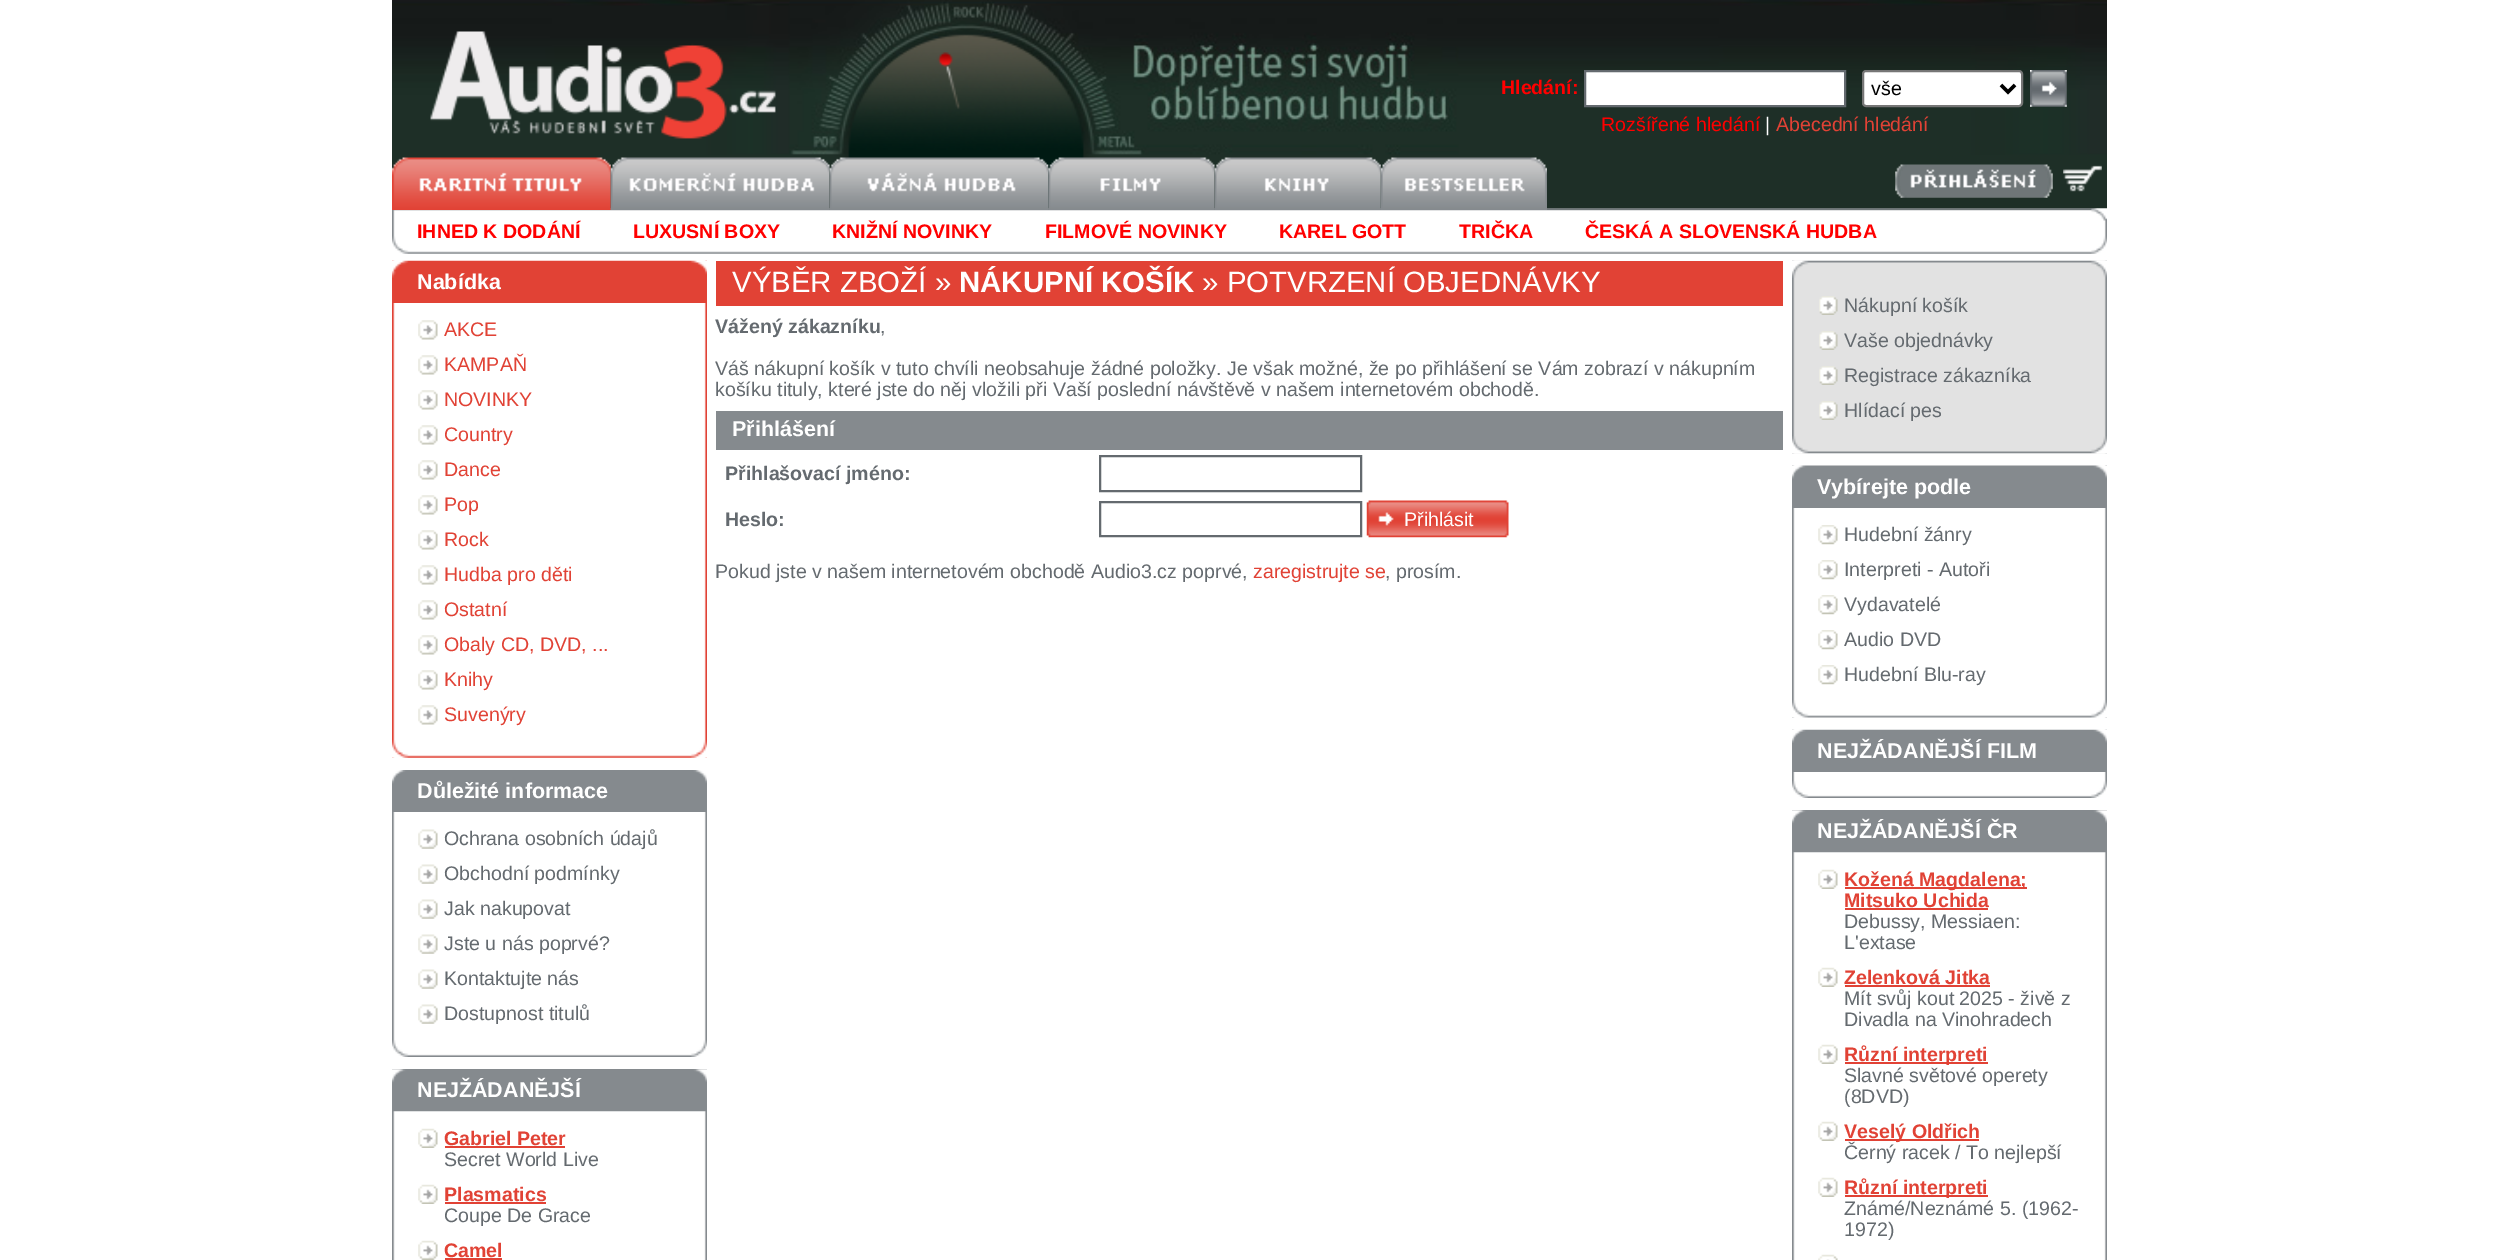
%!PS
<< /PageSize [2497 1260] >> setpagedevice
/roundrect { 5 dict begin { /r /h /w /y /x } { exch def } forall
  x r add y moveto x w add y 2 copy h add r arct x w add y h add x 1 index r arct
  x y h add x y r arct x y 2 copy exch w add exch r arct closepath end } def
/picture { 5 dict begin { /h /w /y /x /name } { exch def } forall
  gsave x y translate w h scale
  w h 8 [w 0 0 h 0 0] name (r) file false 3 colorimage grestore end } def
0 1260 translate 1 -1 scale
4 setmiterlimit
1 setgray
0 0 2497 1260 rectfill
(img1.rgb) 392 0 1715 210 picture
(img2.rgb) 430 31 346 108 picture
/LiberationSans-Bold [19.6 0 0 -19.6 0 0] selectfont
1 0 0 setrgbcolor
1501 94 moveto (Hledání:) show
1 setgray
newpath 1585 71 moveto 1845 71 lineto 1845 106 lineto 1585 106 lineto closepath gsave fill grestore
0.392 0.416 0.435 setrgbcolor
2 setlinewidth
stroke
1 setgray
1863 71 159 35 3 roundrect gsave fill grestore
0.463 setgray
stroke
0 setgray
3.5 setlinewidth
newpath 2001 85 moveto 2008 92 lineto 2015 85 lineto stroke
/LiberationSans-Regular [19.6 0 0 -19.6 0 0] selectfont
1871 95 moveto (vše) show
(img3.rgb) 2030 70 37 37 picture
1 0 0 setrgbcolor
1601 131 moveto (Rozšířené hledání) show
1 setgray
1765 131 moveto (|) show
0.882 0.259 0.208 setrgbcolor
1776 131 moveto (Abecední hledání) show
(img12.rgb) 392 208 1715 46 picture
(img4.rgb) 392 157 219 53 picture
(img5.rgb) 610 157 220 53 picture
(img6.rgb) 829 157 220 53 picture
(img7.rgb) 1048 157 167 53 picture
(img8.rgb) 1214 157 167 53 picture
(img9.rgb) 1380 157 167 53 picture
(img10.rgb) 1895 164 158 34 picture
(img11.rgb) 2063 165 39 27 picture
/LiberationSans-Bold [19.6 0 0 -19.6 0 0] selectfont
1 0 0 setrgbcolor
417 238 moveto (IHNED K DODÁNÍ) show
633 238 moveto (LUXUSNÍ BOXY) show
832 238 moveto (KNIŽNÍ NOVINKY) show
1045 238 moveto (FILMOVÉ NOVINKY) show
1279 238 moveto (KAREL GOTT) show
1459 238 moveto (TRIČKA) show
1585 238 moveto (ČESKÁ A SLOVENSKÁ HUDBA) show
(img13.rgb) 392 260 315 498 picture
0.882 0.259 0.208 setrgbcolor
393 278 313 25 rectfill
(img14.rgb) 392 260 315 18 picture
/LiberationSans-Bold [21.5 0 0 -21.5 0 0] selectfont
1 setgray
417 289 moveto (Nabídka) show
(img15.rgb) 418 320 20 20 picture
/LiberationSans-Regular [19.6 0 0 -19.6 0 0] selectfont
0.882 0.259 0.208 setrgbcolor
444 336 moveto (AKCE) show
(img15.rgb) 418 355 20 20 picture
444 371 moveto (KAMPAŇ) show
(img15.rgb) 418 390 20 20 picture
444 406 moveto (NOVINKY) show
(img15.rgb) 418 425 20 20 picture
444 441 moveto (Country) show
(img15.rgb) 418 460 20 20 picture
444 476 moveto (Dance) show
(img15.rgb) 418 495 20 20 picture
444 511 moveto (Pop) show
(img15.rgb) 418 530 20 20 picture
444 546 moveto (Rock) show
(img15.rgb) 418 565 20 20 picture
444 581 moveto (Hudba pro děti) show
(img15.rgb) 418 600 20 20 picture
444 616 moveto (Ostatní) show
(img15.rgb) 418 635 20 20 picture
444 651 moveto (Obaly CD, DVD, ...) show
(img15.rgb) 418 670 20 20 picture
444 686 moveto (Knihy) show
(img15.rgb) 418 705 20 20 picture
444 721 moveto (Suvenýry) show
(img16.rgb) 392 740 315 18 picture
(img17.rgb) 392 812 315 228 picture
0.522 0.541 0.557 setrgbcolor
392 784 315 28 rectfill
(img18.rgb) 392 770 315 14 picture
/LiberationSans-Bold [21.5 0 0 -21.5 0 0] selectfont
1 setgray
417 798 moveto (Důležité informace) show
(img19.rgb) 418 829 20 20 picture
/LiberationSans-Regular [19.6 0 0 -19.6 0 0] selectfont
0.392 0.416 0.435 setrgbcolor
444 845 moveto (Ochrana osobních údajů) show
(img19.rgb) 418 864 20 20 picture
444 880 moveto (Obchodní podmínky) show
(img19.rgb) 418 899 20 20 picture
444 915 moveto (Jak nakupovat) show
(img19.rgb) 418 934 20 20 picture
444 950 moveto (Jste u nás poprvé?) show
(img19.rgb) 418 969 20 20 picture
444 985 moveto (Kontaktujte nás) show
(img19.rgb) 418 1004 20 20 picture
444 1020 moveto (Dostupnost titulů) show
(img20.rgb) 392 1040 315 17 picture
(img21.rgb) 392 1069 315 191 picture
(img22.rgb) 392 1069 315 43 picture
/LiberationSans-Bold [21.5 0 0 -21.5 0 0] selectfont
1 setgray
417 1097 moveto (NEJŽÁDANĚJŠÍ) show
(img23.rgb) 418 1128 20 20 picture
/LiberationSans-Bold [19.6 0 0 -19.6 0 0] selectfont
0.882 0.259 0.208 setrgbcolor
444 1145 moveto (Gabriel Peter) show
445 1146 120 2 rectfill
/LiberationSans-Regular [19.6 0 0 -19.6 0 0] selectfont
0.392 0.416 0.435 setrgbcolor
444 1166 moveto (Secret World Live) show
(img23.rgb) 418 1184 20 20 picture
/LiberationSans-Bold [19.6 0 0 -19.6 0 0] selectfont
0.882 0.259 0.208 setrgbcolor
444 1201 moveto (Plasmatics) show
445 1202 101 2 rectfill
/LiberationSans-Regular [19.6 0 0 -19.6 0 0] selectfont
0.392 0.416 0.435 setrgbcolor
444 1222 moveto (Coupe De Grace) show
(img23.rgb) 418 1240 20 20 picture
/LiberationSans-Bold [19.6 0 0 -19.6 0 0] selectfont
0.882 0.259 0.208 setrgbcolor
444 1257 moveto (Camel) show
445 1258 57 2 rectfill
716 261 1067 45 rectfill
/LiberationSans-Regular [29.4 0 0 -29.4 0 0] selectfont
1 setgray
732 292 moveto (VÝBĚR ZBOŽÍ ») show
/LiberationSans-Bold [29.4 0 0 -29.4 0 0] selectfont
959 292 moveto (NÁKUPNÍ KOŠÍK) show
/LiberationSans-Regular [29.4 0 0 -29.4 0 0] selectfont
1202 292 moveto (» POTVRZENÍ OBJEDNÁVKY) show
/LiberationSans-Bold [19.6 0 0 -19.6 0 0] selectfont
0.392 0.416 0.435 setrgbcolor
715 333 moveto (Vážený zákazníku) show
/LiberationSans-Regular [19.6 0 0 -19.6 0 0] selectfont
880 333 moveto (,) show
715 375 moveto (Váš nákupní košík v tuto chvíli neobsahuje žádné položky. Je však možné, že po přihlášení se Vám zobrazí v nákupním) show
715 396 moveto (košíku tituly, které jste do něj vložili při Vaší poslední návštěvě v našem internetovém obchodě.) show
0.522 0.541 0.557 setrgbcolor
716 411 1067 39 rectfill
/LiberationSans-Bold [21.5 0 0 -21.5 0 0] selectfont
1 setgray
732 436 moveto (Přihlášení) show
/LiberationSans-Bold [19.6 0 0 -19.6 0 0] selectfont
0.392 0.416 0.435 setrgbcolor
725 480 moveto (Přihlašovací jméno:) show
2 setlinewidth
1100 456 261 35 rectstroke
725 526 moveto (Heslo:) show
1100 502 261 34 rectstroke
(img24.rgb) 1366 500 143 38 picture
/LiberationSans-Regular [19.6 0 0 -19.6 0 0] selectfont
1 setgray
1404 526 moveto (Přihlásit) show
0.392 0.416 0.435 setrgbcolor
715 578 moveto (Pokud jste v našem internetovém obchodě Audio3.cz poprvé,) show
0.882 0.259 0.208 setrgbcolor
1253 578 moveto (zaregistrujte se) show
0.392 0.416 0.435 setrgbcolor
1385 578 moveto (, prosím.) show
(img25.rgb) 1792 260 315 194 picture
(img26.rgb) 1792 260 315 18 picture
(img27.rgb) 1819 296 19 19 picture
1844 312 moveto (Nákupní košík) show
(img27.rgb) 1819 331 19 19 picture
1844 347 moveto (Vaše objednávky) show
(img27.rgb) 1819 366 19 19 picture
1844 382 moveto (Registrace zákazníka) show
(img27.rgb) 1819 401 19 19 picture
1844 417 moveto (Hlídací pes) show
(img28.rgb) 1792 436 315 18 picture
(img29.rgb) 1792 465 315 253 picture
0.522 0.541 0.557 setrgbcolor
1793 479 313 29 rectfill
(img30.rgb) 1792 465 315 14 picture
/LiberationSans-Bold [21.5 0 0 -21.5 0 0] selectfont
1 setgray
1817 494 moveto (Vybírejte podle) show
(img31.rgb) 1818 525 20 20 picture
/LiberationSans-Regular [19.6 0 0 -19.6 0 0] selectfont
0.392 0.416 0.435 setrgbcolor
1844 541 moveto (Hudební žánry) show
(img31.rgb) 1818 560 20 20 picture
1844 576 moveto (Interpreti - Autoři) show
(img31.rgb) 1818 595 20 20 picture
1844 611 moveto (Vydavatelé) show
(img31.rgb) 1818 630 20 20 picture
1844 646 moveto (Audio DVD) show
(img31.rgb) 1818 665 20 20 picture
1844 681 moveto (Hudební Blu-ray) show
(img32.rgb) 1792 700 315 18 picture
(img33.rgb) 1792 729 315 52 picture
0.522 0.541 0.557 setrgbcolor
1793 743 313 29 rectfill
(img34.rgb) 1792 729 315 14 picture
/LiberationSans-Bold [21.5 0 0 -21.5 0 0] selectfont
1 setgray
1817 758 moveto (NEJŽÁDANĚJŠÍ FILM) show
(img35.rgb) 1792 781 315 17 picture
(img36.rgb) 1792 810 315 450 picture
(img37.rgb) 1792 810 315 43 picture
1817 838 moveto (NEJŽÁDANĚJŠÍ ČR) show
(img38.rgb) 1818 869 20 20 picture
0.882 0.259 0.208 setrgbcolor
1845 887 182 2 rectfill
/LiberationSans-Bold [19.6 0 0 -19.6 0 0] selectfont
1844 886 moveto (Kožená Magdalena;) show
1844 907 moveto (Mitsuko Uchida) show
1845 908 143 2 rectfill
/LiberationSans-Regular [19.6 0 0 -19.6 0 0] selectfont
0.392 0.416 0.435 setrgbcolor
1844 928 moveto (Debussy, Messiaen:) show
1844 949 moveto (L'extase) show
(img38.rgb) 1818 967 20 20 picture
/LiberationSans-Bold [19.6 0 0 -19.6 0 0] selectfont
0.882 0.259 0.208 setrgbcolor
1844 984 moveto (Zelenková Jitka) show
1845 985 145 2 rectfill
/LiberationSans-Regular [19.6 0 0 -19.6 0 0] selectfont
0.392 0.416 0.435 setrgbcolor
1844 1005 moveto (Mít svůj kout 2025 - živě z) show
1844 1026 moveto (Divadla na Vinohradech) show
(img38.rgb) 1818 1044 20 20 picture
0.882 0.259 0.208 setrgbcolor
1845 1062 143 2 rectfill
/LiberationSans-Bold [19.6 0 0 -19.6 0 0] selectfont
1844 1061 moveto (Různí interpreti) show
/LiberationSans-Regular [19.6 0 0 -19.6 0 0] selectfont
0.392 0.416 0.435 setrgbcolor
1844 1082 moveto (Slavné světové operety) show
1844 1103 moveto (\(8DVD\)) show
(img38.rgb) 1818 1121 20 20 picture
0.882 0.259 0.208 setrgbcolor
1845 1139 134 2 rectfill
/LiberationSans-Bold [19.6 0 0 -19.6 0 0] selectfont
1844 1138 moveto (Veselý Oldřich) show
/LiberationSans-Regular [19.6 0 0 -19.6 0 0] selectfont
0.392 0.416 0.435 setrgbcolor
1844 1159 moveto (Černý racek / To nejlepší) show
(img38.rgb) 1818 1177 20 20 picture
0.882 0.259 0.208 setrgbcolor
1845 1195 143 2 rectfill
/LiberationSans-Bold [19.6 0 0 -19.6 0 0] selectfont
1844 1194 moveto (Různí interpreti) show
/LiberationSans-Regular [19.6 0 0 -19.6 0 0] selectfont
0.392 0.416 0.435 setrgbcolor
1844 1215 moveto (Známé/Neznámé 5. \(1962-) show
1844 1236 moveto (1972\)) show
(img39.rgb) 1818 1254 20 6 picture
showpage
